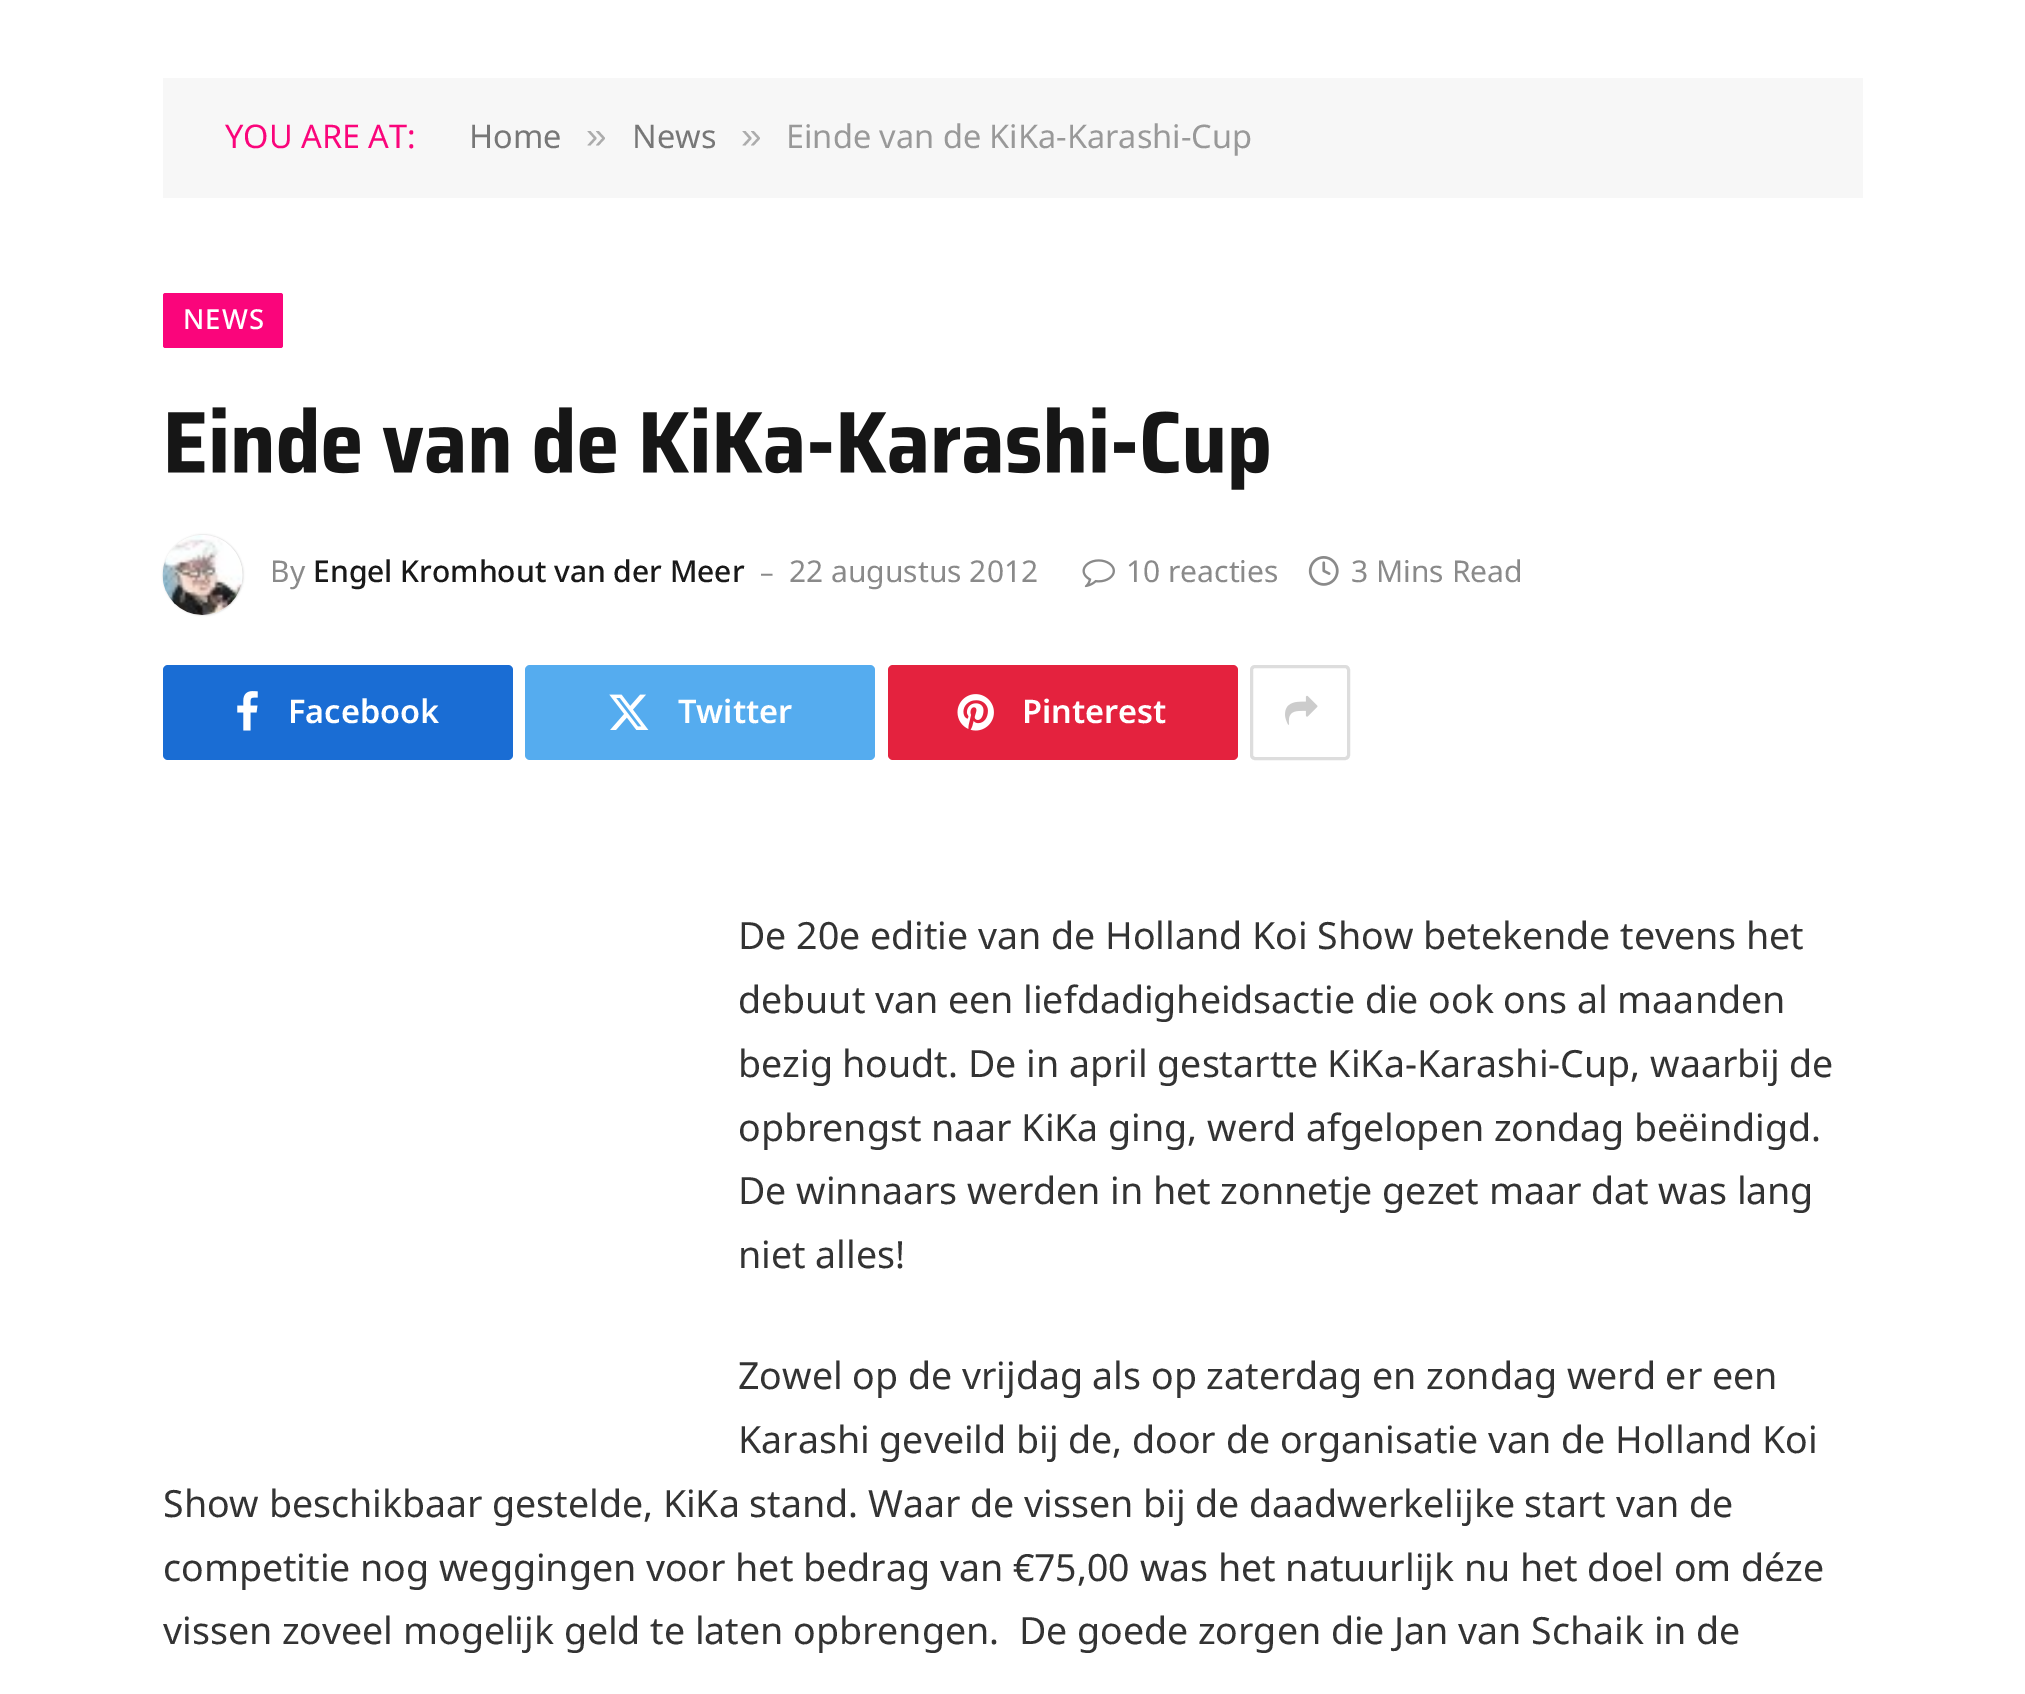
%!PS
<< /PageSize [2025 1694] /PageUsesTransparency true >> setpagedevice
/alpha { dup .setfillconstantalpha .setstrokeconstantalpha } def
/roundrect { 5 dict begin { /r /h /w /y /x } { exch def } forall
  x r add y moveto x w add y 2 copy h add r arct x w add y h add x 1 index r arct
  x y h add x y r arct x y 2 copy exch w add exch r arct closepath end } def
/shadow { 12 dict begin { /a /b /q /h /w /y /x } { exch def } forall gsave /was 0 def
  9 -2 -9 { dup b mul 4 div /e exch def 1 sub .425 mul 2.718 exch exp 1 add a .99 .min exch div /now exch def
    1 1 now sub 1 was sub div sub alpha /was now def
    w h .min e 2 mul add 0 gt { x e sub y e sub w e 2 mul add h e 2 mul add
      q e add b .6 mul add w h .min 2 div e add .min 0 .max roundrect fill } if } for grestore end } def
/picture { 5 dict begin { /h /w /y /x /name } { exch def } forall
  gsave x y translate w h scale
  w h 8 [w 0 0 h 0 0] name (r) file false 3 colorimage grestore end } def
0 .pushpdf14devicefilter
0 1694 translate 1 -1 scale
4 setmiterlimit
1 setgray
0 0 2025 1694 rectfill
0.969 setgray
163 78 1700 120 rectfill
/NotoSans-Regular [32.5 0 0 -32.5 0 0] selectfont
0.98 0.02 0.482 setrgbcolor
225 148 moveto (YOU ARE AT:) show
0.467 setgray
469 148 moveto (Home) show
/LiberationSans-Regular [37 0 0 -37 0 0] selectfont
0.675 setgray
586 148 moveto (») show
/NotoSans-Regular [32.5 0 0 -32.5 0 0] selectfont
0.467 setgray
632 148 moveto (News) show
/LiberationSans-Regular [37 0 0 -37 0 0] selectfont
0.675 setgray
741 148 moveto (») show
/NotoSans-Regular [32.5 0 0 -32.5 0 0] selectfont
0.6 setgray
786 148 moveto (Einde van de KiKa-Karashi-Cup) show
0.98 0.02 0.482 setrgbcolor
163 293 120 55 2.5 roundrect fill
/NotoSans-Medium [27.5 0 0 -27.5 0 0] selectfont
1 setgray
183 329 moveto 1 0 (NEWS) ashow
(img1.rgb) 168 407 1101 83 picture
0 setgray
163 535 80 80 40 1 0.2 shadow
(img2.rgb) 162 535 81 80 picture
/NotoSans-Regular [30 0 0 -30 0 0] selectfont
0.541 setgray
270 582 moveto (By) show
/NotoSans-Medium [30 0 0 -30 0 0] selectfont
0.098 setgray
313 582 moveto (Engel Kromhout van der Meer) show
/NotoSans-Regular [27 0 0 -27 0 0] selectfont
0.541 setgray
760 582 moveto (–) show
/NotoSans-Regular [30 0 0 -30 0 0] selectfont
789 582 moveto (22 augustus 2012) show
(img3.rgb) 1082 559 33 29 picture
1126 582 moveto (10 reacties) show
(img4.rgb) 1308 556 31 30 picture
1351 582 moveto (3 Mins Read) show
0.102 0.427 0.831 setrgbcolor
163 665 350 95 5 roundrect fill
(img5.rgb) 237 691 21 40 picture
/NotoSans-SemiBold [32.5 0 0 -32.5 0 0] selectfont
1 setgray
288 723 moveto (Facebook) show
0.333 0.675 0.937 setrgbcolor
525 665 350 95 5 roundrect fill
(img6.rgb) 609 694 40 36 picture
1 setgray
678 723 moveto (Twitter) show
0.894 0.133 0.243 setrgbcolor
888 665 350 95 5 roundrect fill
(img7.rgb) 957 694 37 37 picture
1 setgray
1022 723 moveto (Pinterest) show
0.867 setgray
3 setlinewidth
1251.5 666.5 97 92 3.5 roundrect stroke
(img8.rgb) 1285 695 33 30 picture
/NotoSans-Regular [37.5 0 0 -37.5 0 0] selectfont
0.2 setgray
738 949 moveto (De 20e editie van de Holland Koi Show betekende tevens het) show
738 1013 moveto (debuut van een liefdadigheidsactie die ook ons al maanden) show
738 1077 moveto (bezig houdt. De in april gestartte KiKa-Karashi-Cup, waarbij de) show
738 1141 moveto (opbrengst naar KiKa ging, werd afgelopen zondag beëindigd.) show
738 1204 moveto (De winnaars werden in het zonnetje gezet maar dat was lang) show
738 1268 moveto (niet alles!) show
738 1389 moveto (Zowel op de vrijdag als op zaterdag en zondag werd er een) show
738 1453 moveto (Karashi geveild bij de, door de organisatie van de Holland Koi) show
163 1517 moveto (Show beschikbaar gestelde, KiKa stand. Waar de vissen bij de daadwerkelijke start van de) show
163 1581 moveto (competitie nog weggingen voor het bedrag van €75,00 was het natuurlijk nu het doel om déze) show
163 1644 moveto (vissen zoveel mogelijk geld te laten opbrengen.  De goede zorgen die Jan van Schaik in de) show
.poppdf14devicefilter showpage
